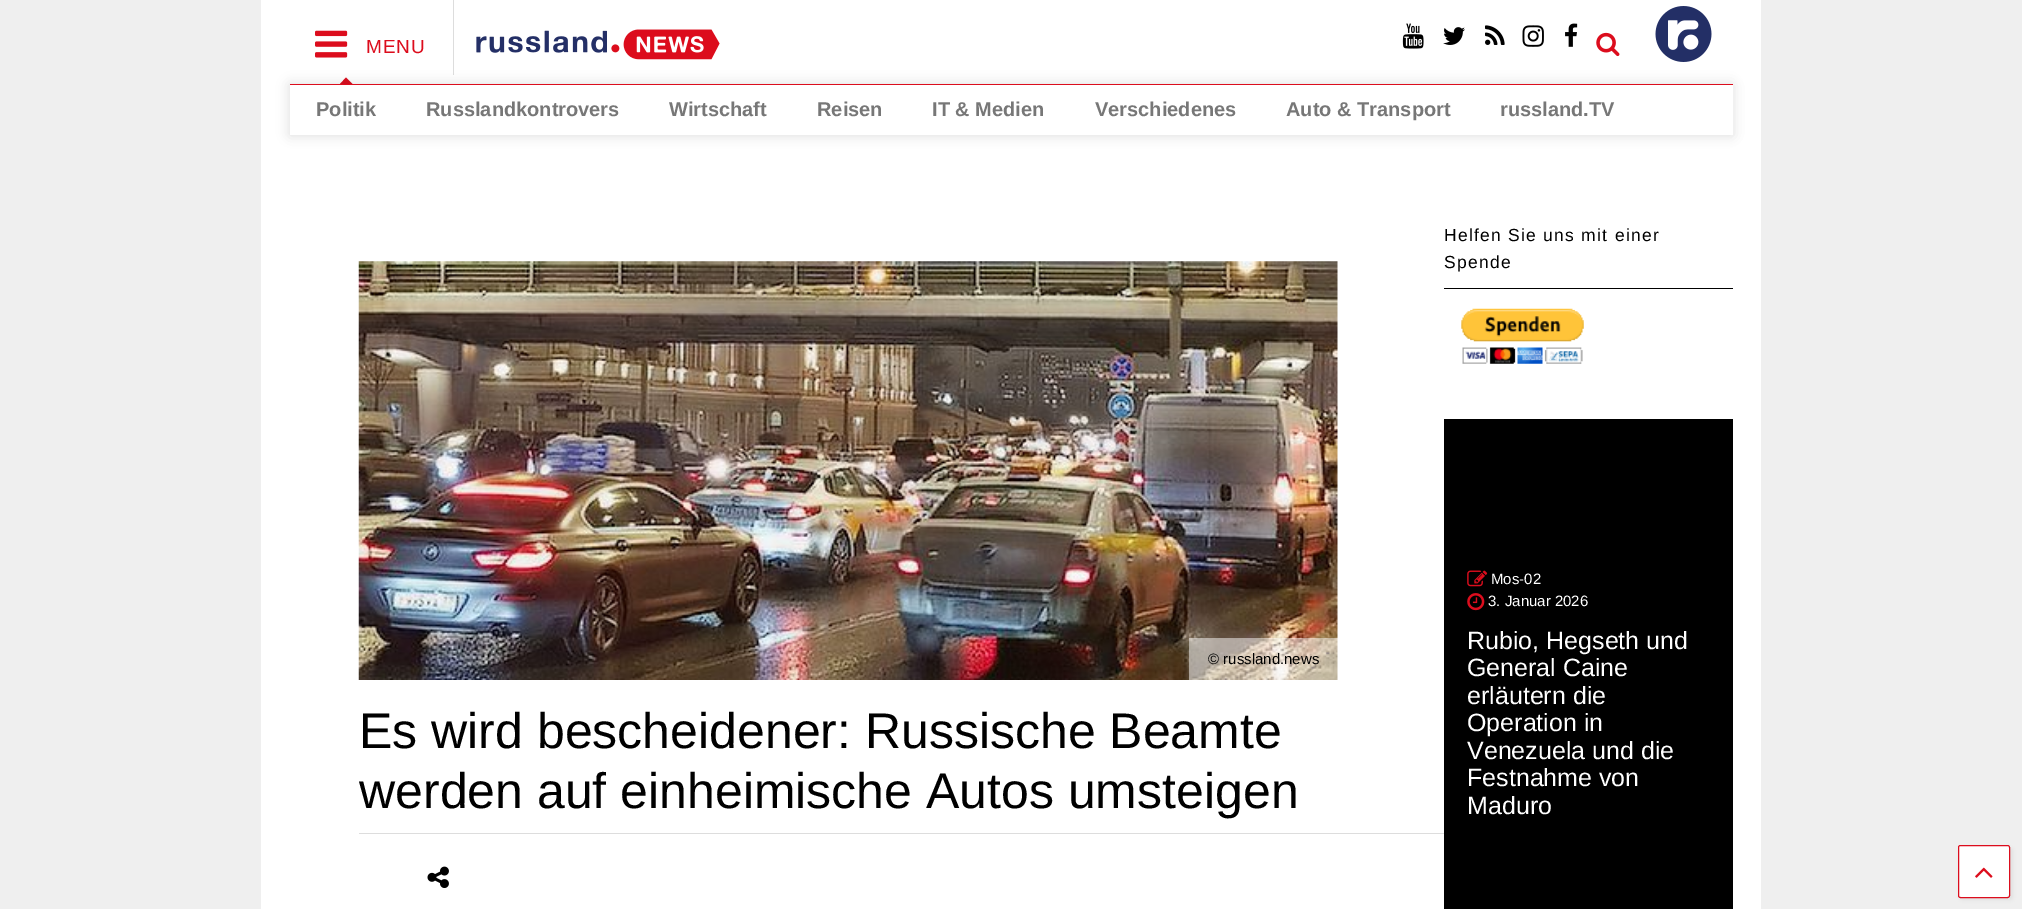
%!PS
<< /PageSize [2022 909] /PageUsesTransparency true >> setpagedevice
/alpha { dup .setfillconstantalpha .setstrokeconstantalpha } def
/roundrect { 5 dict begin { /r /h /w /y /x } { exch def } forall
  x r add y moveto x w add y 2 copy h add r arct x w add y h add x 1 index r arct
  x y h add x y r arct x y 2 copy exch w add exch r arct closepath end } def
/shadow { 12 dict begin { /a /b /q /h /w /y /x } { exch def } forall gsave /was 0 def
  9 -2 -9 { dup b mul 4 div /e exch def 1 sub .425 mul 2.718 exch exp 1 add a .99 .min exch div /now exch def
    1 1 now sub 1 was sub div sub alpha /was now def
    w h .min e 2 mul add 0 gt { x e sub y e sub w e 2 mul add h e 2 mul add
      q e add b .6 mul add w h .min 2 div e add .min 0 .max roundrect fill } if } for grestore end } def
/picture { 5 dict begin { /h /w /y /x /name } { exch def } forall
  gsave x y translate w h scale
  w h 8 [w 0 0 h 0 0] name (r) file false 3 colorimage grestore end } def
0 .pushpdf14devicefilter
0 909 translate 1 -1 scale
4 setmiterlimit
0.937 setgray
0 0 2022 909 rectfill
1 setgray
261 0 1500 909 rectfill
(img1.rgb) 315 30 33 28 picture
/Arimo-Regular [19 0 0 -19 0 0] selectfont
0.863 0.047 0.11 setrgbcolor
366 53 moveto 1 0 (MENU) ashow
0.863 0.051 0.114 setrgbcolor
newpath 352.5 84 moveto 340 84 lineto 346 77.5 lineto closepath fill
0.867 setgray
453 0 1 75 rectfill
(img2.rgb) 476 29 244 31 picture
(img3.rgb) 1402 23 22 26 picture
(img4.rgb) 1443 27 22 18 picture
(img5.rgb) 1485 25 20 20 picture
(img6.rgb) 1522 25 22 22 picture
(img7.rgb) 1565 23 13 24 picture
(img8.rgb) 1596 32 24 25 picture
(img9.rgb) 1655 6 57 56 picture
0 setgray
289 84 1442 51 0 6 0.08 shadow
291 85 1443 51 0 6 0.05 shadow
1 setgray
290 85 1443 50 rectfill
0.863 0.051 0.114 setrgbcolor
290 84 1443 1 rectfill
/Arimo-Bold [20 0 0 -20 0 0] selectfont
0.467 setgray
316 116 moveto (Politik) show
426 116 moveto (Russlandkontrovers) show
669 116 moveto (Wirtschaft) show
817 116 moveto (Reisen) show
932 116 moveto (IT & Medien) show
1095 116 moveto (Verschiedenes) show
1286 116 moveto (Auto & Transport) show
1500 116 moveto (russland.TV) show
(img10.rgb) 358 261 980 419 picture
0.5 alpha
1 setgray
1189 638 149 42 rectfill
/Arimo-Regular [15 0 0 -15 0 0] selectfont
1 alpha
0 setgray
1208 664 moveto (© russland.news) show
/Arimo-Regular [50 0 0 -50 0 0] selectfont
359 748 moveto (Es wird bescheidener: Russische Beamte) show
359 808 moveto (werden auf einheimische Autos umsteigen) show
0.867 setgray
359 833 1085 1 rectfill
(img11.rgb) 427 866 22 22 picture
0 setgray
1444 288 289 1 rectfill
/Arimo-Regular [17.5 0 0 -17.5 0 0] selectfont
1444 241 moveto 1.25 0 (Helfen Sie uns mit einer) ashow
1444 268 moveto 1.25 0 (Spende) ashow
(img12.rgb) 1461 308 123 56 picture
1444 419 289 490 rectfill
(img13.rgb) 1467 570 21 17 picture
/Arimo-Regular [15 0 0 -15 0 0] selectfont
1 setgray
1491 584 moveto (Mos-02) show
(img14.rgb) 1467 593 18 18 picture
1488 606 moveto (3. Januar 2026) show
/Arimo-Regular [25 0 0 -25 0 0] selectfont
1467 649 moveto (Rubio, Hegseth und) show
1467 676 moveto (General Caine) show
1467 704 moveto (erläutern die) show
1467 731 moveto (Operation in) show
1467 759 moveto (Venezuela und die) show
1467 786 moveto (Festnahme von) show
1467 814 moveto (Maduro) show
0 setgray
1960 848 53 52 2.5 2 0.05 shadow
1 setgray
1958.5 845.5 51 52 2 roundrect gsave fill grestore
0.863 0.051 0.114 setrgbcolor
stroke
(img15.rgb) 1975 867 18 11 picture
.poppdf14devicefilter showpage
